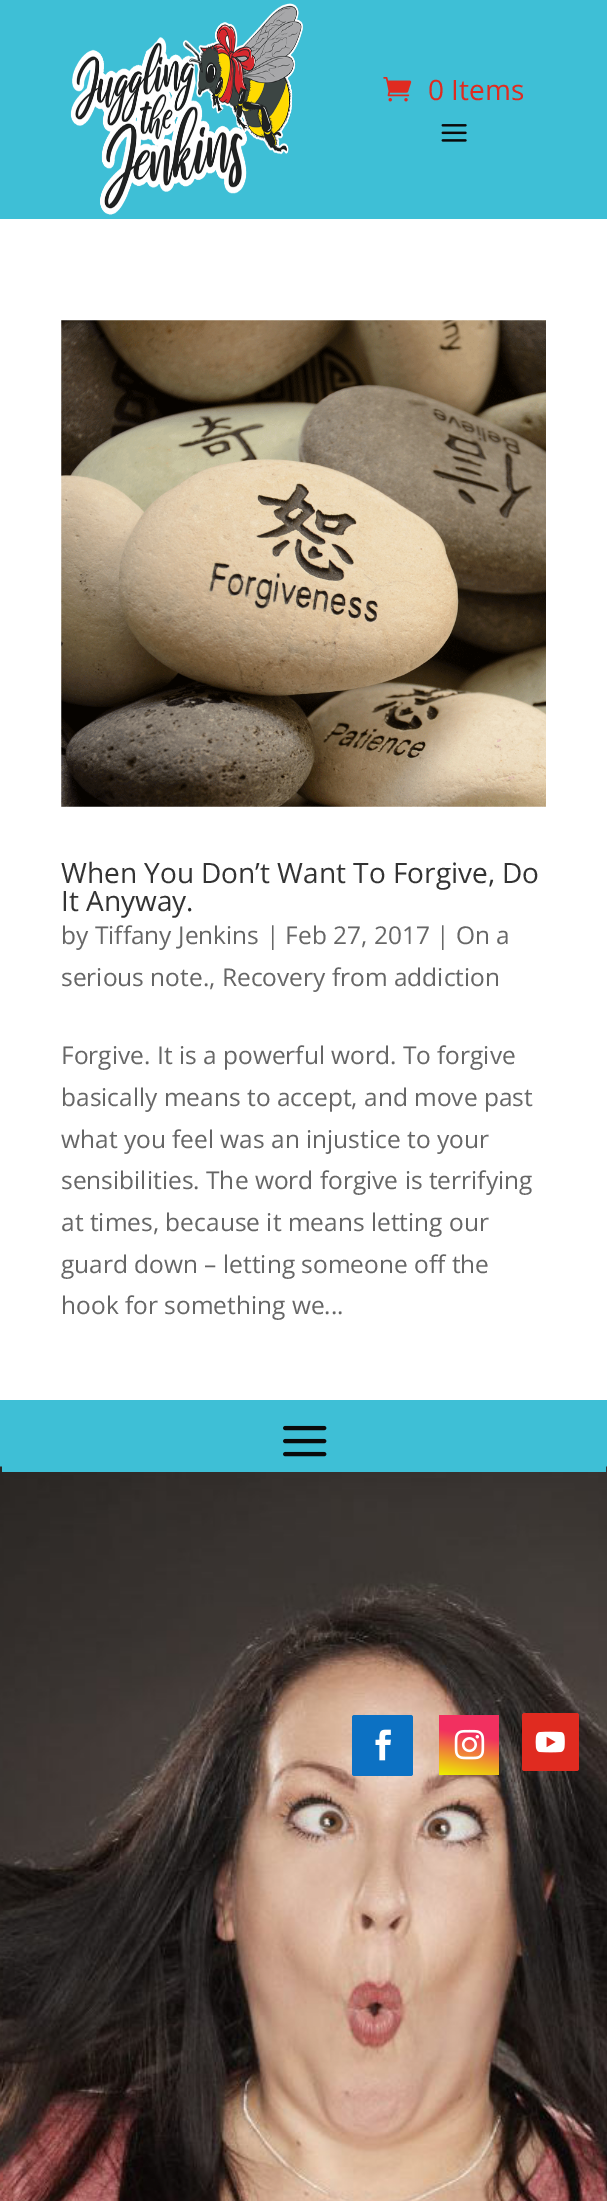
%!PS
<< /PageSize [607 2201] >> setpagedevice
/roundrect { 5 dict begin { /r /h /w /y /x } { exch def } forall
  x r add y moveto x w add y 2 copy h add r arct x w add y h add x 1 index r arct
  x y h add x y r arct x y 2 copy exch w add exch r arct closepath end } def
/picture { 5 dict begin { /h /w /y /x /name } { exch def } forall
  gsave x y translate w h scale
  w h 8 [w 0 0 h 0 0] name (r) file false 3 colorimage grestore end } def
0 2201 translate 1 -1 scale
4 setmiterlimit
1 setgray
0 0 607 2201 rectfill
0.243 0.749 0.839 setrgbcolor
0 0 607 219 rectfill
(img1.rgb) 70 3 233 212 picture
(img2.rgb) 383 77 29 25 picture
/OpenSans-Regular [28 0 0 -28 0 0] selectfont
0.878 0.169 0.125 setrgbcolor
428 100 moveto (0 Items) show
(img3.rgb) 441 124 26 18 picture
(img4.rgb) 61 320 485 487 picture
0.2 setgray
61 883 moveto (When You Don’t Want To Forgive, Do) show
61 911 moveto (It Anyway.) show
/OpenSans-Regular [24.5 0 0 -24.5 0 0] selectfont
0.4 setgray
61 944 moveto (by Tiffany Jenkins | Feb 27, 2017 | On a) show
61 986 moveto (serious note., Recovery from addiction) show
61 1064 moveto (Forgive. It is a powerful word. To forgive) show
61 1106 moveto (basically means to accept, and move past) show
61 1148 moveto (what you feel was an injustice to your) show
61 1189 moveto (sensibilities. The word forgive is terrifying) show
61 1231 moveto (at times, because it means letting our) show
61 1273 moveto (guard down – letting someone off the) show
61 1314 moveto (hook for something we...) show
0.243 0.749 0.839 setrgbcolor
0 1400 607 67 rectfill
(img6.rgb) 0 1466 607 735 picture
2 1466 604 6 rectfill
(img5.rgb) 283 1425 44 32 picture
0.047 0.443 0.765 setrgbcolor
352 1715 61 61 2.5 roundrect fill
(img7.rgb) 375 1729 16 32 picture
gsave 439 1715 60 60 2 roundrect clip newpath
<< /ShadingType 2 /ColorSpace /DeviceRGB /Coords [475 1712 463 1779] /Extend [true true] /Function << /FunctionType 3 /Domain [0 1] /Functions [<< /FunctionType 2 /Domain [0 1] /C0 [0.949 0.188 0.376] /C1 [0.949 0.188 0.376] /N 1 >> << /FunctionType 2 /Domain [0 1] /C0 [0.949 0.188 0.376] /C1 [0.929 0.941 0] /N 1 >>] /Bounds [0.34] /Encode [0 1 0 1] >> >> shfill grestore
(img8.rgb) 454 1729 31 31 picture
0.878 0.169 0.125 setrgbcolor
522 1713 57 58 2.5 roundrect fill
(img9.rgb) 535 1731 30 22 picture
showpage
